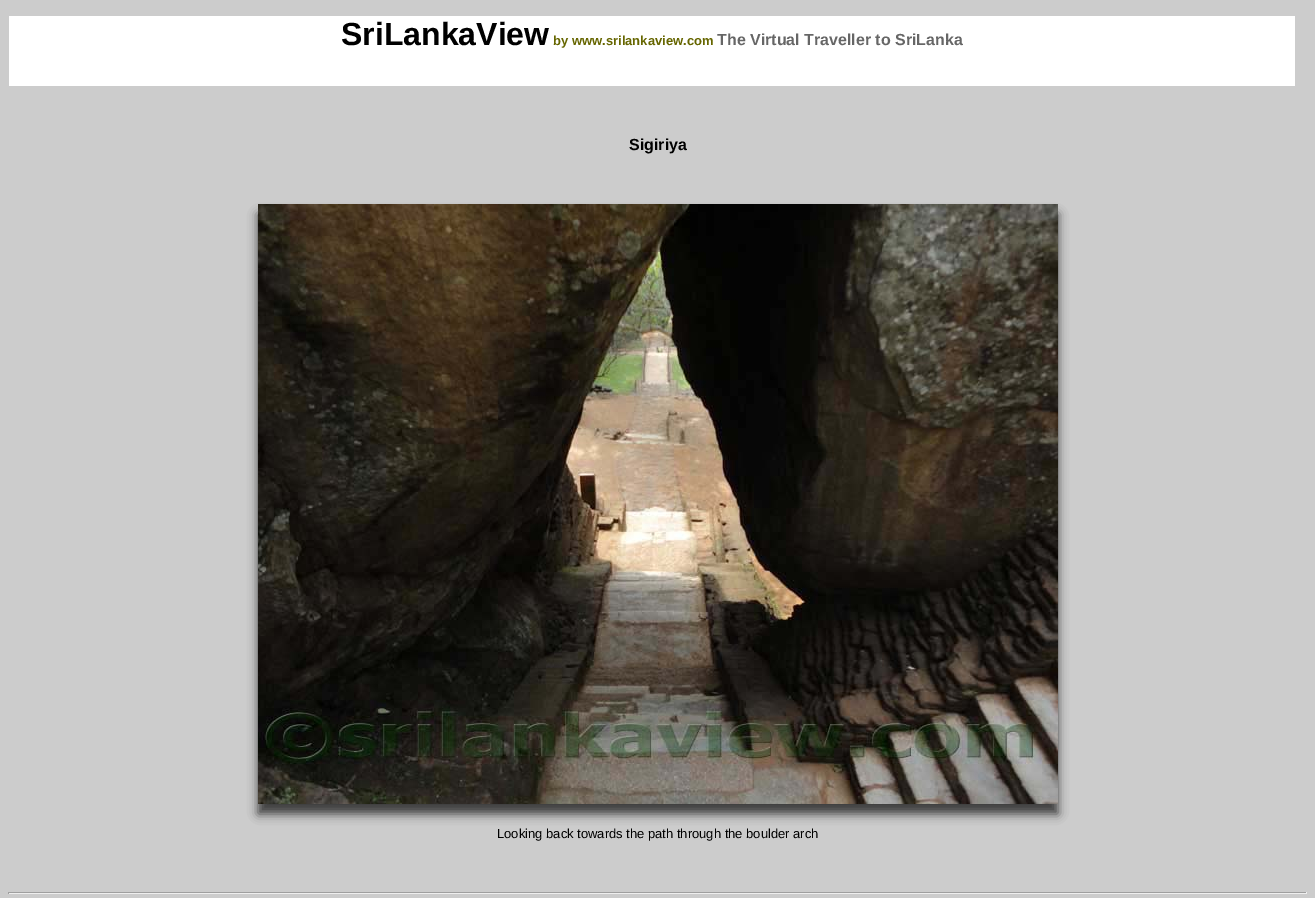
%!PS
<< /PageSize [1315 898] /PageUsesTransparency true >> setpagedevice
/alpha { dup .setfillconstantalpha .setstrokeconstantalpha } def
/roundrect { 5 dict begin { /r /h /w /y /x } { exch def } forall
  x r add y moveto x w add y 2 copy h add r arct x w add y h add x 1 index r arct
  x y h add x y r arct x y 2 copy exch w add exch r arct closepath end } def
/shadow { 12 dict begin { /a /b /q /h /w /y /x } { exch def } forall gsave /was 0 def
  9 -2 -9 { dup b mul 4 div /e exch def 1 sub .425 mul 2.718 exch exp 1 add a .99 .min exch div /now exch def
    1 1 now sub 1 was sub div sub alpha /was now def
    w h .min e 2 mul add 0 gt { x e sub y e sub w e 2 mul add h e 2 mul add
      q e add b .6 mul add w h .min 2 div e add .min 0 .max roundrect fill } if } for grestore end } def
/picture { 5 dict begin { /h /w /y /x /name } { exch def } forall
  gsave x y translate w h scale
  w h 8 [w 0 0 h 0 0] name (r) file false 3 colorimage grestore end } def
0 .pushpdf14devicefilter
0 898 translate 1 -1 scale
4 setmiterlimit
0.8 setgray
0 0 1315 898 rectfill
1 setgray
9 16 1286 70 rectfill
/LiberationSans-Bold [32 0 0 -32 0 0] selectfont
0 setgray
341 45 moveto (SriLankaView) show
/LiberationSans-Bold [13 0 0 -13 0 0] selectfont
0.4 0.4 0 setrgbcolor
553 45 moveto (by www.srilankaview.com) show
/LiberationSans-Bold [16 0 0 -16 0 0] selectfont
0.4 setgray
717 45 moveto (The Virtual Traveller to SriLanka) show
0 setgray
629 150 moveto (Sigiriya) show
258 214 800 600 0 5 0.7 shadow
(img1.rgb) 258 204 800 600 picture
/LiberationSans-Regular [13 0 0 -13 0 0] selectfont
497 838 moveto (Looking back towards the path through the boulder arch) show
0.624 setgray
8 892 1299 1 rectfill
0.933 setgray
1306 892 1 2 rectfill
8 893 1299 1 rectfill
0.624 setgray
8 892 1 2 rectfill
.poppdf14devicefilter showpage
